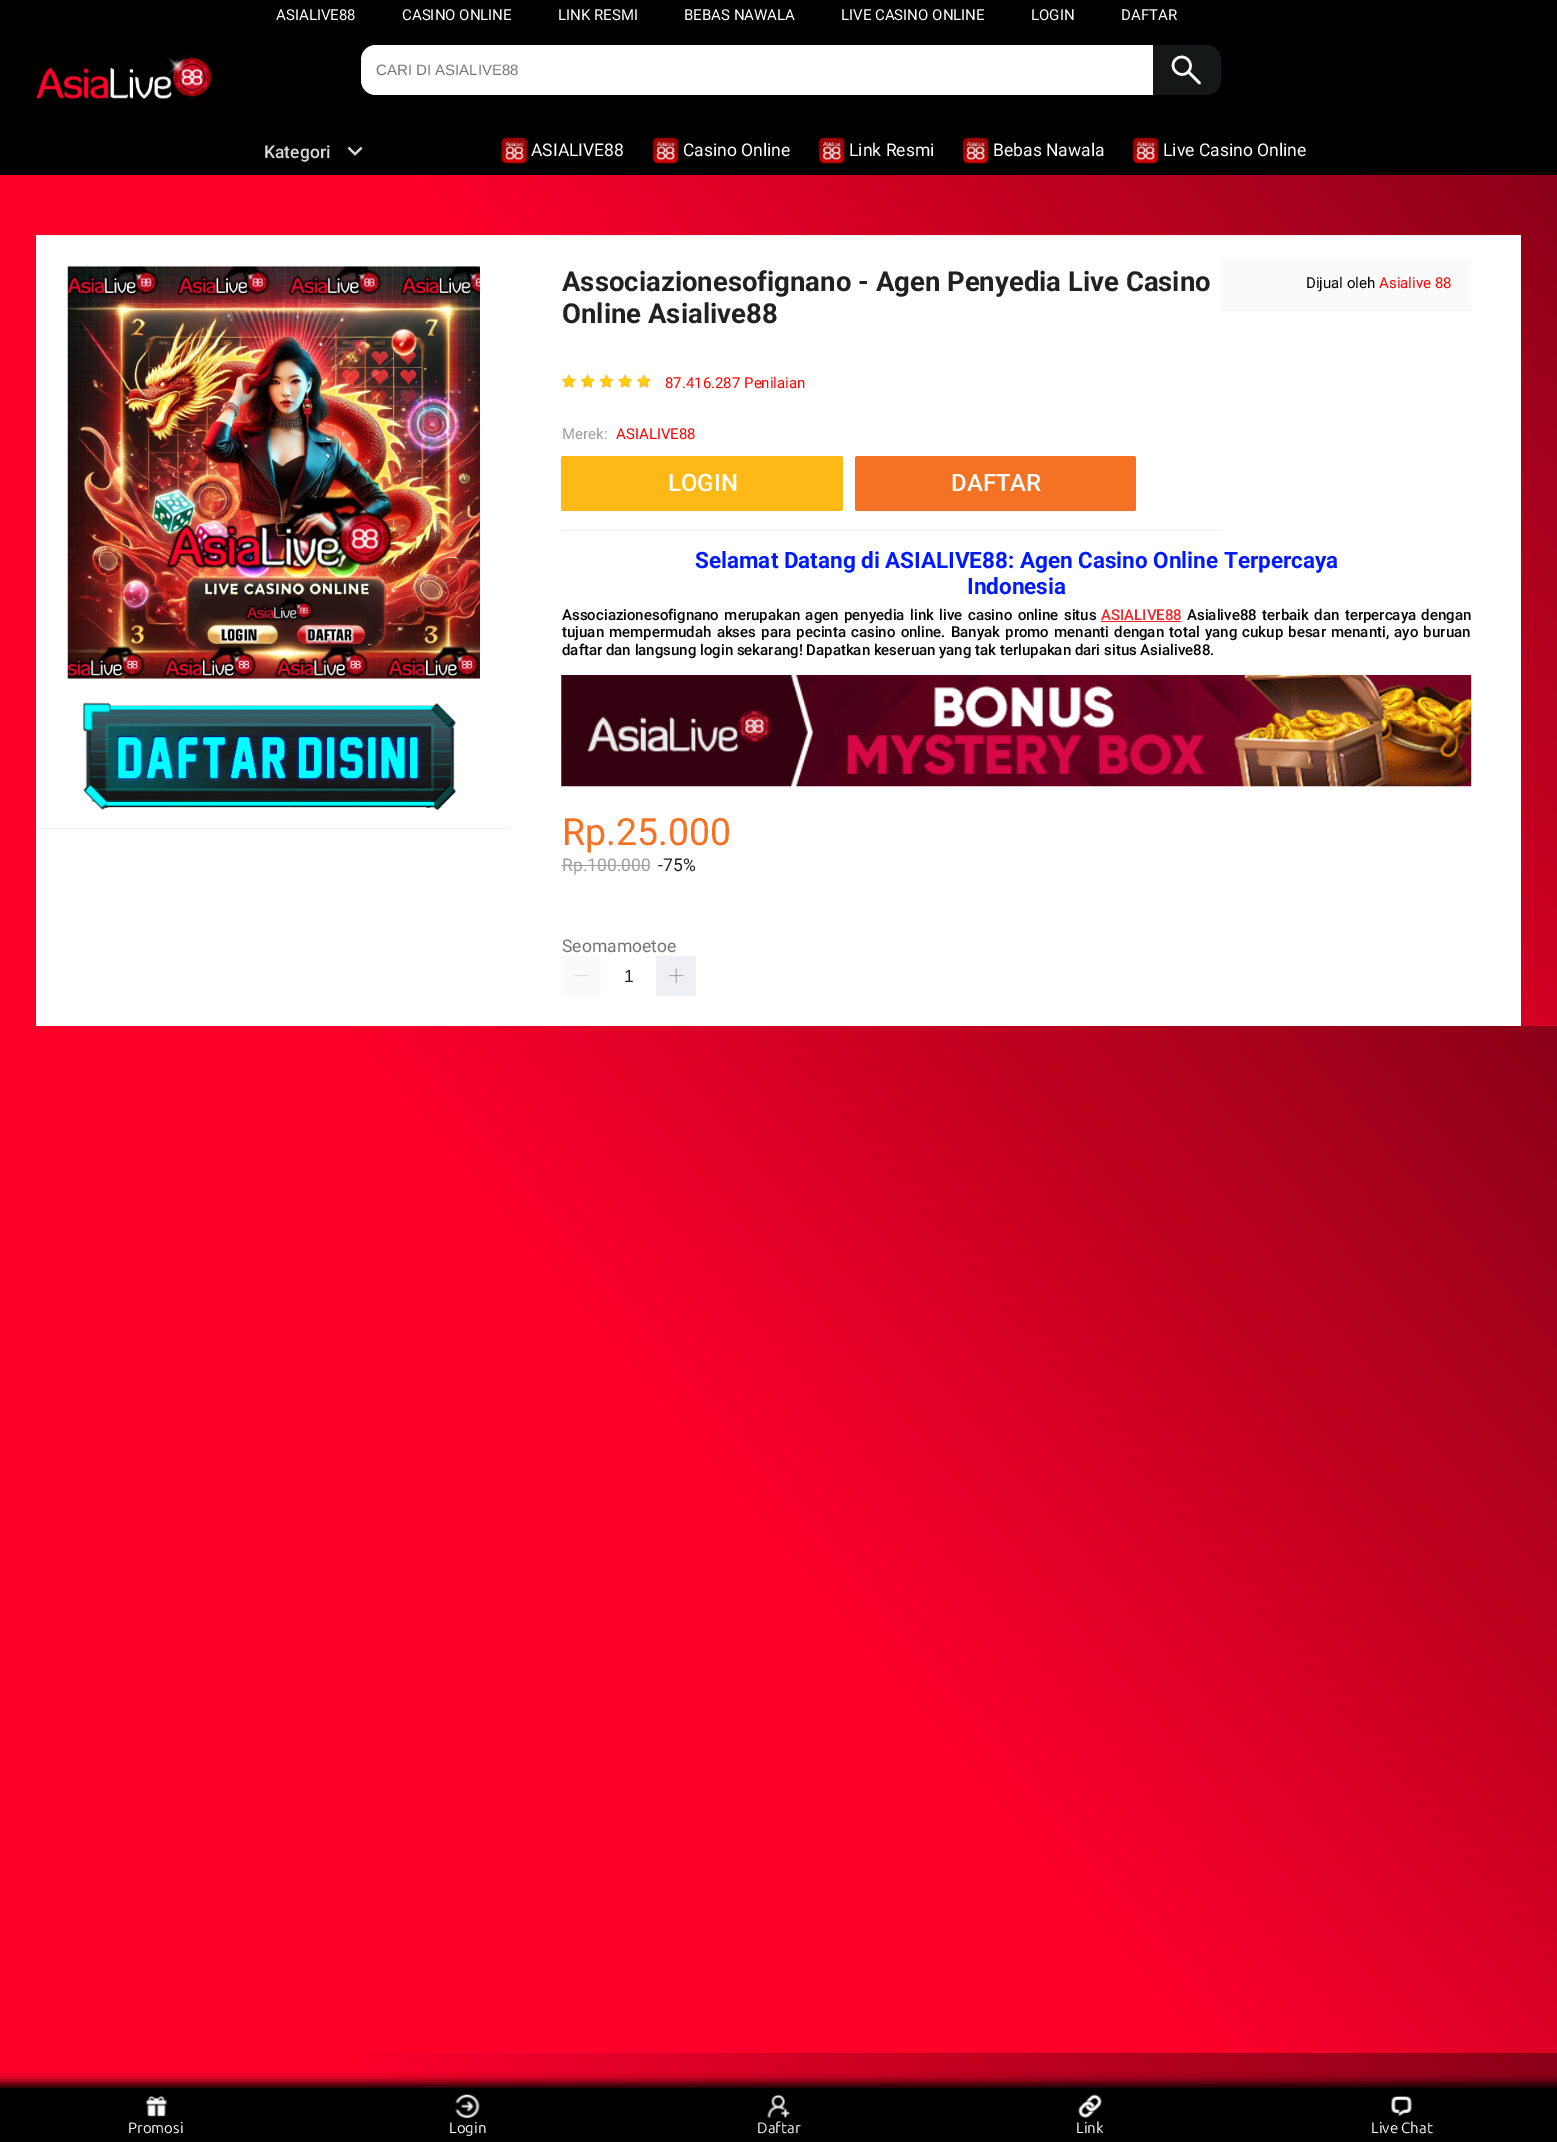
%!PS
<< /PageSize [1557 2142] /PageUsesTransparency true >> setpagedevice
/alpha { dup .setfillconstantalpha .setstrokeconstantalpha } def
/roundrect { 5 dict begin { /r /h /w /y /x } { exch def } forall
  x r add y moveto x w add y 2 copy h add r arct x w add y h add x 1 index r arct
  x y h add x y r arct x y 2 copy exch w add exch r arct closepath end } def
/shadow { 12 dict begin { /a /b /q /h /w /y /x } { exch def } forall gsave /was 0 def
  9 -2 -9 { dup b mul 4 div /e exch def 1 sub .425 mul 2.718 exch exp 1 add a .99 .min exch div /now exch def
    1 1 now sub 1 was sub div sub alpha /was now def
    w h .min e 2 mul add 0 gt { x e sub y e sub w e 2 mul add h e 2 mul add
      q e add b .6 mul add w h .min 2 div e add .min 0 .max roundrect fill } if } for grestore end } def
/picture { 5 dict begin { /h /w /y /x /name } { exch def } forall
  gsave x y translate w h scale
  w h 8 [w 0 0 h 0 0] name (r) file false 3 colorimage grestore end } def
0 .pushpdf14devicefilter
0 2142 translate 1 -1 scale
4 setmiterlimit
1 setgray
0 0 1557 2142 rectfill
gsave newpath 0 1026 moveto 1557 1026 lineto 1557 2053 lineto 0 2053 lineto closepath clip newpath
<< /ShadingType 2 /ColorSpace /DeviceRGB /Coords [69 2135 1488 944] /Extend [true true] /Function << /FunctionType 3 /Domain [0 1] /Functions [<< /FunctionType 2 /Domain [0 1] /C0 [0.988 0 0.165] /C1 [0.988 0 0.165] /N 1 >> << /FunctionType 2 /Domain [0 1] /C0 [0.988 0 0.165] /C1 [0.545 0.004 0.094] /N 1 >>] /Bounds [0.5] /Encode [0 1 0 1] >> >> shfill grestore
gsave newpath 0 2053 moveto 1557 2053 lineto 1557 2088 lineto 0 2088 lineto closepath clip newpath
<< /ShadingType 2 /ColorSpace /DeviceRGB /Coords [69 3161 1488 1970] /Extend [true true] /Function << /FunctionType 3 /Domain [0 1] /Functions [<< /FunctionType 2 /Domain [0 1] /C0 [0.988 0 0.165] /C1 [0.988 0 0.165] /N 1 >> << /FunctionType 2 /Domain [0 1] /C0 [0.988 0 0.165] /C1 [0.545 0.004 0.094] /N 1 >>] /Bounds [0.5] /Encode [0 1 0 1] >> >> shfill grestore
0 setgray
0 0 1557 175 rectfill
/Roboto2-Regular [15 0 0 -15 0 0] selectfont
1 setgray
276 20 moveto (ASIALIVE88) show
402 20 moveto (CASINO ONLINE) show
558 20 moveto (LINK RESMI) show
684 20 moveto (BEBAS NAWALA) show
841 20 moveto (LIVE CASINO ONLINE) show
1031 20 moveto (LOGIN) show
1121 20 moveto (DAFTAR) show
(img1.rgb) 36 45 176 54 picture
newpath 376 45 moveto 1153 45 lineto 1153 95 lineto 376 95 lineto 367.5 95 361 88.5 361 80 curveto 361 60 lineto 361 51.5 367.5 45 376 45 curveto closepath fill
/LiberationSans-Regular [15 0 0 -15 0 0] selectfont
0.459 setgray
376 75 moveto (CARI DI ASIALIVE88) show
0.078 0.094 0.094 setrgbcolor
newpath 1153 45 moveto 1206 45 lineto 1214.5 45 1221 51.5 1221 60 curveto 1221 80 lineto 1221 88.5 1214.5 95 1206 95 curveto 1153 95 lineto closepath fill
1 setgray
2.5 setlinewidth
1 setlinecap
1 setlinejoin
newpath 1188 72 moveto 1196 63.5 1184 51.5 1175.5 59.5 curveto 1167.5 67.5 1180 80 1188 72 curveto closepath 1188.5 72 moveto 1199.5 83 lineto stroke
/Roboto2-Medium [17.5 0 0 -17.5 0 0] selectfont
0.851 setgray
264 158 moveto (Kategori) show
(img2.rgb) 347 146 16 10 picture
(img3.rgb) 501 137 27 27 picture
/Roboto2-Regular [17.5 0 0 -17.5 0 0] selectfont
1 setgray
531 156 moveto (ASIALIVE88) show
(img4.rgb) 652 137 28 27 picture
683 156 moveto (Casino Online) show
(img5.rgb) 818 137 28 27 picture
849 156 moveto (Link Resmi) show
(img4.rgb) 962 137 28 27 picture
993 156 moveto (Bebas Nawala) show
(img4.rgb) 1132 137 28 27 picture
1163 156 moveto (Live Casino Online) show
gsave newpath 0 175 moveto 1557 175 lineto 1557 1026 lineto 0 1026 lineto closepath clip newpath
<< /ShadingType 2 /ColorSpace /DeviceRGB /Coords [112 1160 1445 41] /Extend [true true] /Function << /FunctionType 3 /Domain [0 1] /Functions [<< /FunctionType 2 /Domain [0 1] /C0 [0.988 0 0.165] /C1 [0.988 0 0.165] /N 1 >> << /FunctionType 2 /Domain [0 1] /C0 [0.988 0 0.165] /C1 [0.545 0.004 0.094] /N 1 >>] /Bounds [0.5] /Encode [0 1 0 1] >> >> shfill grestore
0.937 0.941 0.961 setrgbcolor
36 235 1485 1 rectfill
1 setgray
36 236 1485 790 rectfill
0.937 0.941 0.961 setrgbcolor
36 828 475 1 rectfill
(img6.rgb) 67 266 413 413 picture
(img7.rgb) 82 702 374 109 picture
/Roboto-Bold [27.5 0 0 -27.5 0 0] selectfont
0.129 setgray
562 291 moveto (Associazionesofignano - Agen Penyedia Live Casino) show
562 323 moveto (Online Asialive88) show
(img8.rgb) 561 373 16 15 picture
(img9.rgb) 580 373 15 15 picture
(img10.rgb) 598 373 16 15 picture
(img11.rgb) 617 374 16 14 picture
(img8.rgb) 636 373 16 15 picture
/Roboto-Regular [15 0 0 -15 0 0] selectfont
1 0 0 setrgbcolor
665 388 moveto (87.416.287 Penilaian) show
0.937 0.941 0.961 setrgbcolor
561 530 660 1 rectfill
0.62 setgray
562 439 moveto (Merek:) show
1 0 0 setrgbcolor
616 439 moveto (ASIALIVE88) show
1 0.725 0.086 setrgbcolor
561 456 282 55 2.5 roundrect fill
/Roboto-Medium [24 0 0 -24 0 0] selectfont
1 setgray
668 491 moveto (LOGIN) show
0.961 0.447 0.141 setrgbcolor
855 456 281 55 2.5 roundrect fill
1 setgray
951 491 moveto (DAFTAR) show
0.98 setgray
1221 259 250 51 rectfill
/Roboto-Regular [15 0 0 -15 0 0] selectfont
0 setgray
1306 288 moveto (Dijual oleh) show
1 0 0 setrgbcolor
1379 288 moveto (Asialive 88) show
0.937 0.941 0.961 setrgbcolor
1221 310 250 1 rectfill
/Roboto-Bold [22.5 0 0 -22.5 0 0] selectfont
0 0.102 1 setrgbcolor
695 568 moveto (Selamat Datang di ASIALIVE88: Agen Casino Online Terpercaya) show
967 594 moveto (Indonesia) show
/Roboto-Medium [15 0 0 -15 0 0] selectfont
0 setgray
562 620 moveto 1.75 0 32 (Associazionesofignano merupakan agen penyedia link live casino online situs) widthshow
0.961 0.141 0.141 setrgbcolor
1101 620 moveto (ASIALIVE88) show
1101 621 80 1 rectfill
0 setgray
1187 620 moveto 1.75 0 32 (Asialive88 terbaik dan terpercaya dengan) widthshow
562 637 moveto 1.5 0 32 (tujuan mempermudah akses para pecinta casino online. Banyak promo menanti dengan total yang cukup besar menanti, ayo buruan) widthshow
562 655 moveto (daftar dan langsung login sekarang! Dapatkan keseruan yang tak terlupakan dari situs Asialive88.) show
(img12.rgb) 561 675 911 112 picture
/Roboto-Regular [37.5 0 0 -37.5 0 0] selectfont
0.961 0.447 0.141 setrgbcolor
562 845 moveto (Rp.25.000) show
/Roboto-Regular [17.5 0 0 -17.5 0 0] selectfont
0.62 setgray
562 871 moveto (Rp.100.000) show
561 865 89 1 rectfill
0.129 setgray
658 871 moveto (-75%) show
0.459 setgray
562 952 moveto (Seomamoetoe) show
0.98 setgray
561 956 40 40 rectfill
(img13.rgb) 574 975 15 2 picture
0.937 0.941 0.961 setrgbcolor
656 956 40 40 rectfill
(img14.rgb) 669 968 15 15 picture
/LiberationSans-Regular [17.5 0 0 -17.5 0 0] selectfont
0.129 setgray
624 982 moveto (1) show
0 setgray
-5 2083 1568 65 0 5 1 shadow
0 2088 1557 54 rectfill
(img15.rgb) 146 2095 22 22 picture
/Ubuntu-Regular [15 0 0 -15 0 0] selectfont
1 setgray
128 2133 moveto (Promosi) show
(img16.rgb) 455 2094 25 25 picture
449 2133 moveto (Login) show
(img17.rgb) 767 2094 23 24 picture
757 2133 moveto (Daftar) show
(img18.rgb) 1078 2094 24 24 picture
1076 2133 moveto (Link) show
(img19.rgb) 1391 2095 22 21 picture
1371 2133 moveto (Live Chat) show
.poppdf14devicefilter showpage
